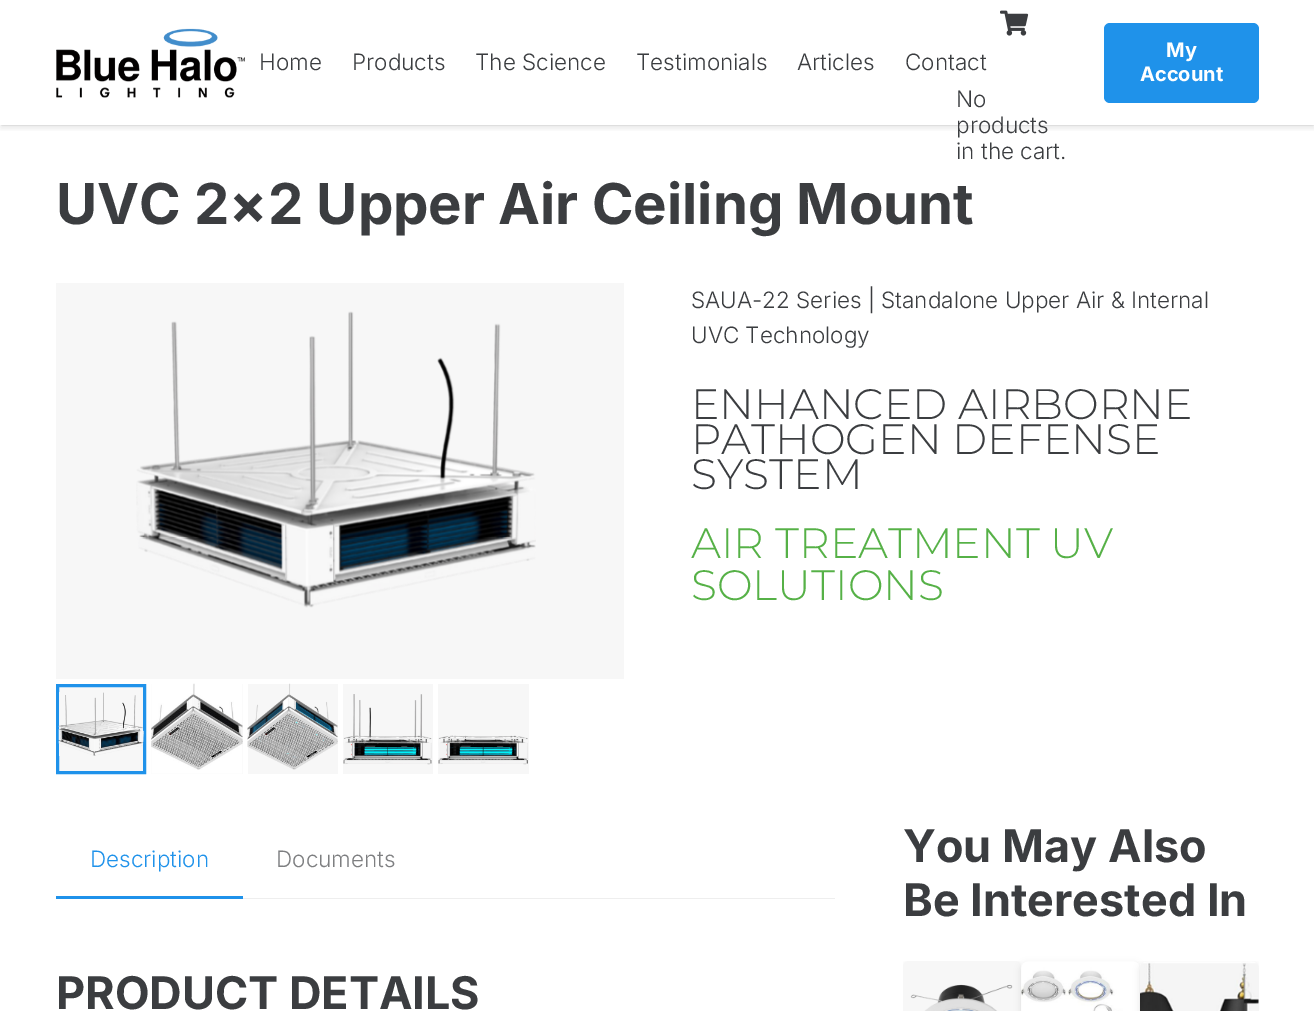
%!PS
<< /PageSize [1314 1011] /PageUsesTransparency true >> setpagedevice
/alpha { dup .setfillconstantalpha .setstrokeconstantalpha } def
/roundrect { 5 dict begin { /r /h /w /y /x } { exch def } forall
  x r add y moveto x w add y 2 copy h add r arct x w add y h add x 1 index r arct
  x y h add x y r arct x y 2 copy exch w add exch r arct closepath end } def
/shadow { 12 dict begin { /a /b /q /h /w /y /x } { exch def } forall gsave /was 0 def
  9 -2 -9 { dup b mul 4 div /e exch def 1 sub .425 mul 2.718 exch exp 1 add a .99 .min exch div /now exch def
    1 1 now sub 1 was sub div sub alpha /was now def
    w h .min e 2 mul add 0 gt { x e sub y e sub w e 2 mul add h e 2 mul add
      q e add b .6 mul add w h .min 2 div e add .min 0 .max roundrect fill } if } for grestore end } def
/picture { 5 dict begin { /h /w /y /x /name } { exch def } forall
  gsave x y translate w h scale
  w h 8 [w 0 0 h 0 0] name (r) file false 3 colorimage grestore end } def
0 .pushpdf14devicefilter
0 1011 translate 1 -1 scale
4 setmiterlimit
1 setgray
0 0 1314 1011 rectfill
gsave
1 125 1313 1 rectclip
0 setgray
1 4 1313 122 0 0.5 0.05 shadow
grestore
gsave
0 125 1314 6 rectclip
0 setgray
1 5 1313 123 0 3 0.1 shadow
grestore
(img1.rgb) 56 28 189 70 picture
/Inter-Light [22.5 0 0 -22.5 0 0] selectfont
0.231 0.239 0.251 setrgbcolor
259 70 moveto (Home) show
352 70 moveto (Products) show
475 70 moveto (The Science) show
636 70 moveto (Testimonials) show
797 70 moveto (Articles) show
905 70 moveto (Contact) show
0.122 0.573 0.918 setrgbcolor
1104 23 155 80 6 roundrect fill
/Inter-Bold [20 0 0 -20 0 0] selectfont
1 setgray
1166 57 moveto (My) show
1140 81 moveto (Account) show
(img2.rgb) 1000 10 29 26 picture
/Inter-Light [22.5 0 0 -22.5 0 0] selectfont
0.231 0.239 0.251 setrgbcolor
956 107 moveto (No) show
956 133 moveto (products) show
956 159 moveto (in the cart.) show
/Inter-Bold [56.25 0 0 -56.25 0 0] selectfont
56 224 moveto (UVC 2×2 Upper Air Ceiling Mount) show
0.969 setgray
56 283 568 396 rectfill
(img3.rgb) 136 311 400 297 picture
newpath 57.5 685.5 moveto 144.5 685.5 lineto 144.5 772.5 lineto 57.5 772.5 lineto closepath gsave fill grestore
0.122 0.573 0.918 setrgbcolor
3 setlinewidth
stroke
(img4.rgb) 58 692 86 64 picture
0.969 setgray
151 684 92 90 rectfill
(img5.rgb) 151 683 92 91 picture
248 684 90 90 rectfill
(img6.rgb) 247 683 91 87 picture
343 684 90 90 rectfill
(img7.rgb) 343 694 89 71 picture
438 684 91 90 rectfill
(img8.rgb) 438 735 90 30 picture
/Inter-Light [22.5 0 0 -22.5 0 0] selectfont
0.231 0.239 0.251 setrgbcolor
691 308 moveto (SAUA-22 Series | Standalone Upper Air & Internal) show
691 343 moveto (UVC Technology) show
/Montserrat-Light [42.5 0 0 -42.5 0 0] selectfont
691 419 moveto (ENHANCED AIRBORNE) show
691 454 moveto (PATHOGEN DEFENSE) show
691 489 moveto (SYSTEM) show
0.337 0.694 0.278 setrgbcolor
691 558 moveto (AIR TREATMENT UV) show
691 600 moveto (SOLUTIONS) show
/Inter-Light [22.5 0 0 -22.5 0 0] selectfont
0.122 0.573 0.918 setrgbcolor
90 867 moveto (Description) show
0.494 0.498 0.506 setrgbcolor
276 867 moveto (Documents) show
0.122 0.573 0.918 setrgbcolor
56 896 187 3 rectfill
0.933 setgray
243 898 592 1 rectfill
/Inter-Bold [45 0 0 -45 0 0] selectfont
0.231 0.239 0.251 setrgbcolor
56 1009 moveto (PRODUCT DETAILS) show
903 862 moveto (You May Also) show
903 916 moveto (Be Interested In) show
gsave
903 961 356 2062 rectclip
0 setgray
903 964 118 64 6 3.5 0.1 shadow
grestore
0.969 setgray
newpath 909 961 moveto 1015 961 lineto 1018.5 961 1021 963.5 1021 967 curveto 1021 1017 lineto 903 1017 lineto 903 967 lineto 903 963.5 905.5 961 909 961 curveto closepath fill
(img9.rgb) 910 984 103 27 picture
0 setgray
1021 964 119 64 6 3.5 0.1 shadow
0.969 setgray
newpath 1027 961 moveto 1134 961 lineto 1137.5 961 1140 963.5 1140 967 curveto 1140 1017 lineto 1021 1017 lineto 1021 967 lineto 1021 963.5 1023.5 961 1027 961 curveto closepath fill
(img10.rgb) 1021 961 119 50 picture
gsave
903 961 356 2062 rectclip
0 setgray
1140 964 119 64 6 3.5 0.1 shadow
grestore
newpath 1146 961 moveto 1253 961 lineto 1256.5 961 1259 963.5 1259 967 curveto 1259 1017 lineto 1140 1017 lineto 1140 967 lineto 1140 963.5 1142.5 961 1146 961 curveto closepath fill
(img11.rgb) 1140 961 119 50 picture
.poppdf14devicefilter showpage
